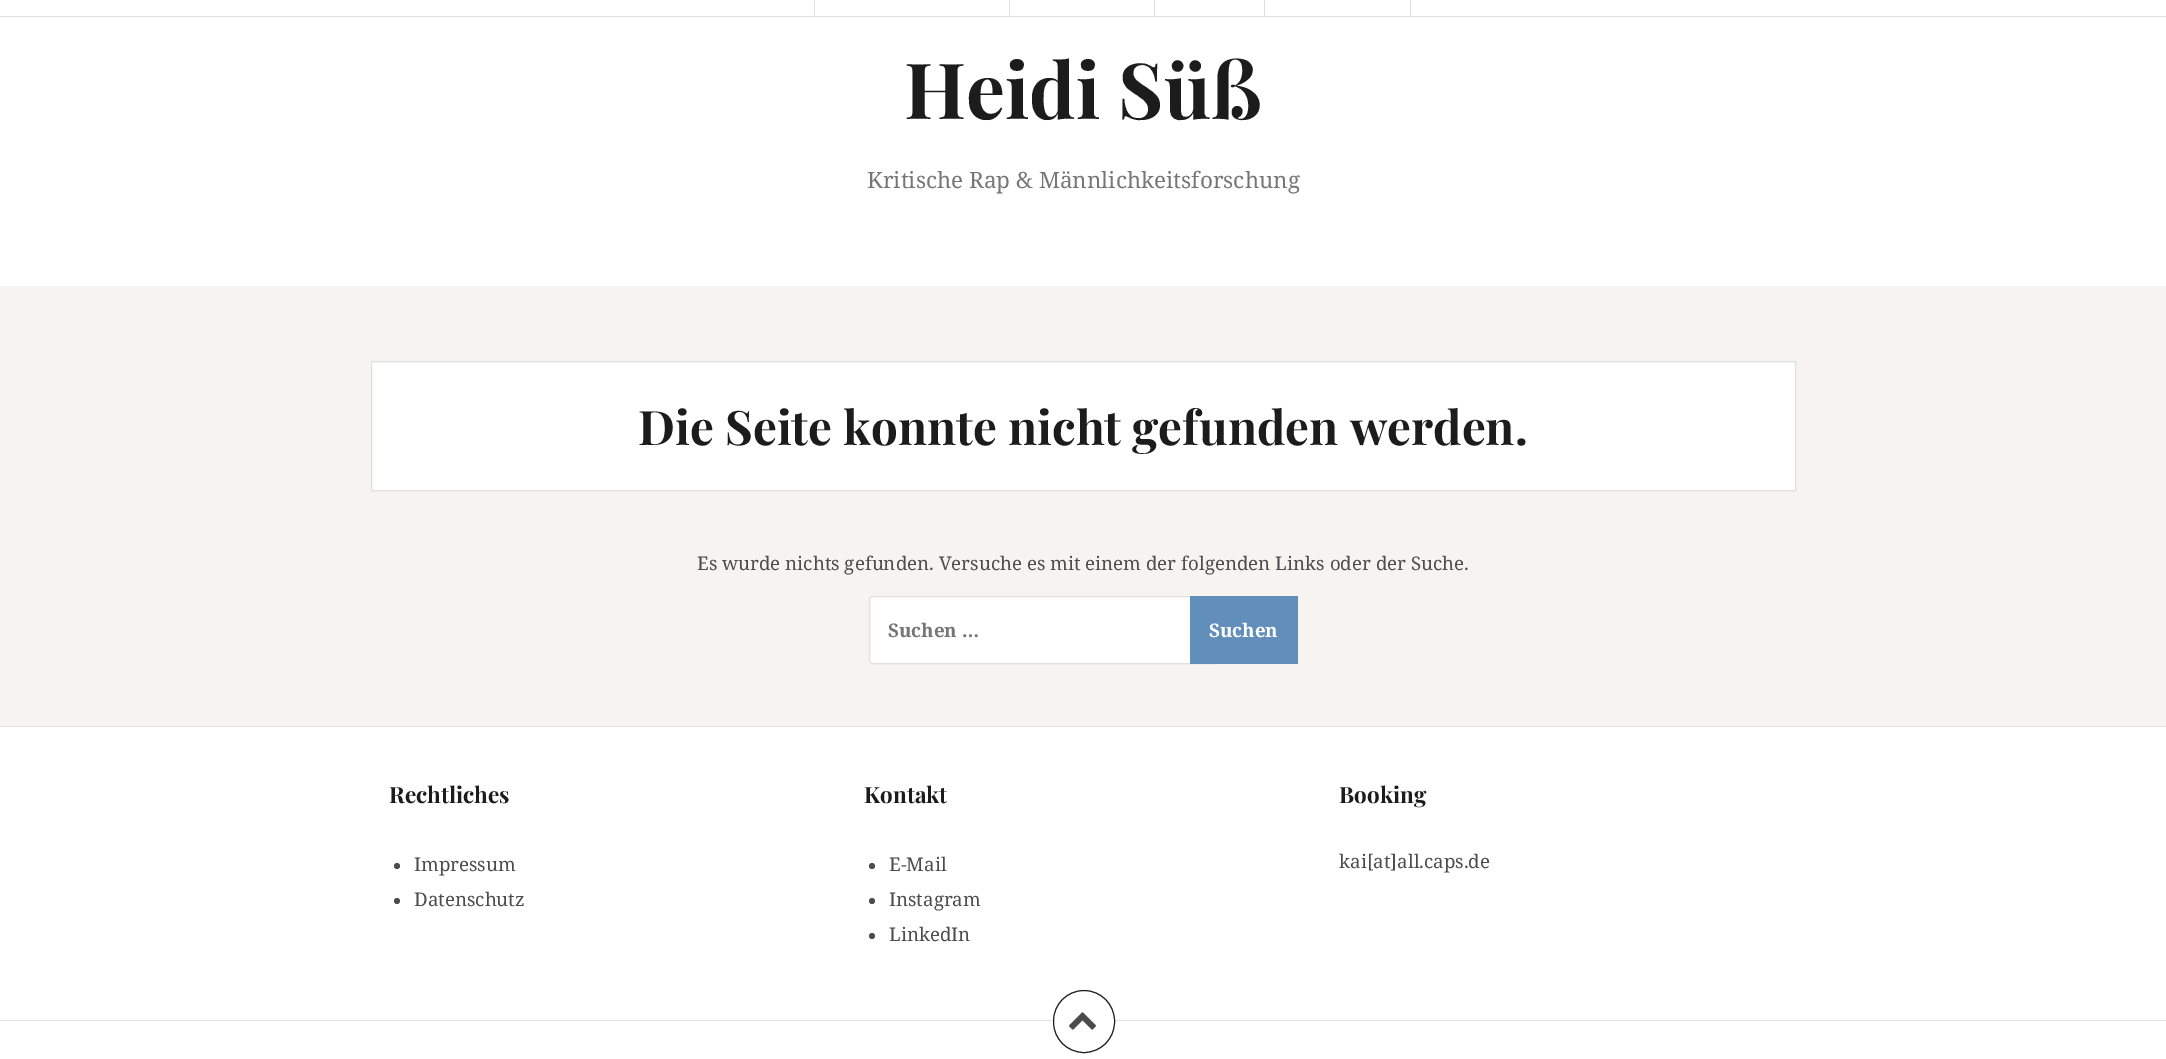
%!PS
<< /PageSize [2166 1059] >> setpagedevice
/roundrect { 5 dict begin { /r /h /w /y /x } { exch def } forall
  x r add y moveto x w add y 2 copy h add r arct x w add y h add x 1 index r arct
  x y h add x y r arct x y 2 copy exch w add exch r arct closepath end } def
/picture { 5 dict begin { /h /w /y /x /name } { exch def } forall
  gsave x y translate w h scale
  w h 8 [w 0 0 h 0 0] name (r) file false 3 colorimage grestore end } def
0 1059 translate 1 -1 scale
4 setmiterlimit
0.969 0.953 0.941 setrgbcolor
0 0 2166 1059 rectfill
1 setgray
0 0 2166 286 rectfill
0.878 setgray
0 16 2166 1 rectfill
814 0 1 16 rectfill
1009 0 1 16 rectfill
1154 0 1 16 rectfill
1264 0 1 16 rectfill
1410 0 1 16 rectfill
/PlayfairDisplay-Bold [77.5 0 0 -77.5 0 0] selectfont
0.11 setgray
904 119 moveto (Heidi Süß) show
/NotoSerif-Regular [22.5 0 0 -22.5 0 0] selectfont
0.463 setgray
867 188 moveto (Kritische Rap & Männlichkeitsforschung) show
1 setgray
newpath 371.5 361.5 moveto 1795.5 361.5 lineto 1795.5 490.5 lineto 371.5 490.5 lineto closepath gsave fill grestore
0.878 setgray
stroke
/PlayfairDisplay-Bold [47.5 0 0 -47.5 0 0] selectfont
0.11 setgray
638 445 moveto (Die Seite konnte nicht gefunden werden.) show
/NotoSerif-Regular [18.75 0 0 -18.75 0 0] selectfont
0.298 setgray
697 570 moveto (Es wurde nichts gefunden. Versuche es mit einem der folgenden Links oder der Suche.) show
1 setgray
869.5 596.5 353 67 3.5 roundrect gsave fill grestore
0.878 setgray
stroke
/NotoSerif-Bold [18.75 0 0 -18.75 0 0] selectfont
0.463 setgray
888 637 moveto (Suchen …) show
0.38 0.557 0.729 setrgbcolor
1190 596 108 68 rectfill
1 setgray
1209 637 moveto (Suchen) show
0 727 2166 293 rectfill
0.878 setgray
0 726 2166 1 rectfill
/PlayfairDisplay-Bold [22.5 0 0 -22.5 0 0] selectfont
0.11 setgray
389 803 moveto (Rechtliches) show
0.298 setgray
newpath 397 866 3 0 360 arc closepath fill
/NotoSerif-Regular [18.75 0 0 -18.75 0 0] selectfont
414 871 moveto (Impressum) show
newpath 397 901 3 0 360 arc closepath fill
414 906 moveto (Datenschutz) show
/PlayfairDisplay-Bold [22.5 0 0 -22.5 0 0] selectfont
0.11 setgray
864 803 moveto (Kontakt) show
0.298 setgray
newpath 872 866 3 0 360 arc closepath fill
/NotoSerif-Regular [18.75 0 0 -18.75 0 0] selectfont
889 871 moveto (E-Mail) show
newpath 872 901 3 0 360 arc closepath fill
889 906 moveto (Instagram) show
newpath 872 936 3 0 360 arc closepath fill
889 941 moveto (LinkedIn) show
/PlayfairDisplay-Bold [22.5 0 0 -22.5 0 0] selectfont
0.11 setgray
1339 803 moveto (Booking) show
/NotoSerif-Regular [18.75 0 0 -18.75 0 0] selectfont
0.298 setgray
1339 868 moveto (kai[at]all.caps.de) show
1 setgray
0 1021 2166 38 rectfill
0.878 setgray
0 1020 2166 1 rectfill
1 setgray
1053.5 990.5 61 62 30.5 roundrect gsave fill grestore
0.11 setgray
stroke
(img1.rgb) 1069 1012 27 18 picture
showpage
